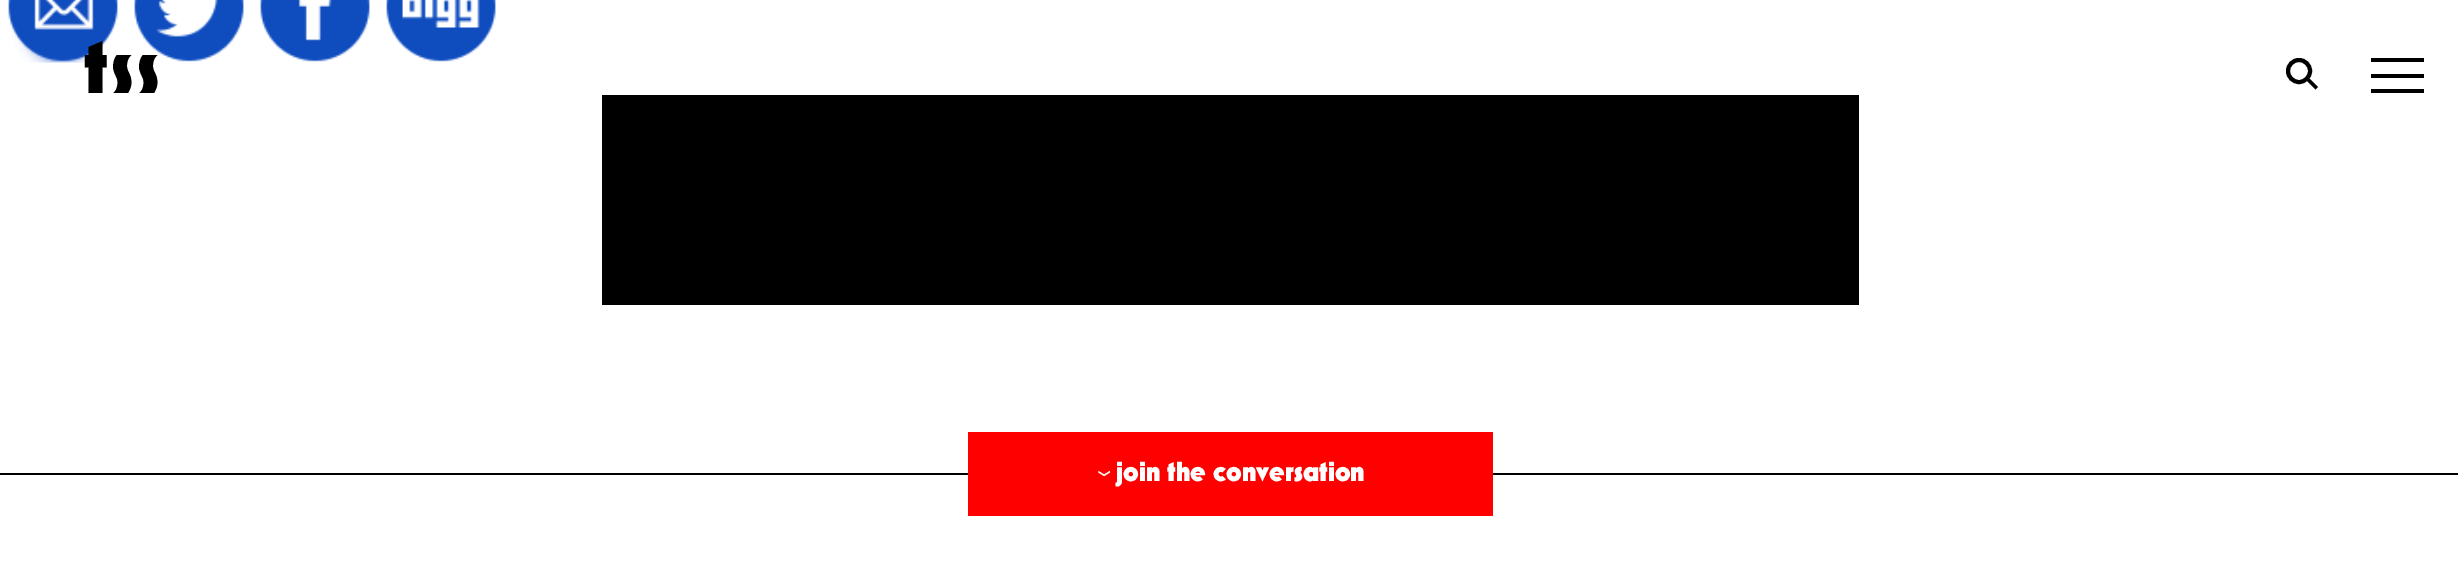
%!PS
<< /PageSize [2458 572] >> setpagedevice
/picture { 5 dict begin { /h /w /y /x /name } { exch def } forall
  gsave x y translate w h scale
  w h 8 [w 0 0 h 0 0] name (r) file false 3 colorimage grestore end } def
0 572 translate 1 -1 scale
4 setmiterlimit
1 setgray
0 0 2458 572 rectfill
(img1.rgb) 8 0 110 63 picture
(img2.rgb) 134 0 110 62 picture
/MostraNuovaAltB-Black [77 0 0 -77 0 0] selectfont
0 setgray
84 93 moveto -8.75 0 (t s s) ashow
(img3.rgb) 260 0 110 62 picture
(img4.rgb) 386 0 110 62 picture
602 95 1257 210 rectfill
0 473 2458 2 rectfill
1 0 0 setrgbcolor
968 432 525 84 rectfill
/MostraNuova-Regular [28 0 0 -28 0 0] selectfont
1 setgray
gsave 1098 470 translate 90 rotate 0 0 moveto (›) show grestore
/MostraNuova-Black [28 0 0 -28 0 0] selectfont
1116 481 moveto (join the conversation) show
0 setgray
4 setlinewidth
newpath 2299 71 11 0 360 arc closepath stroke
newpath 2309.5 78.5 moveto 2318 87 lineto 2315.5 89.5 lineto 2307 81 lineto closepath fill
2371 58 53 4 rectfill
2371 74 53 4 rectfill
2371 89 53 4 rectfill
showpage
